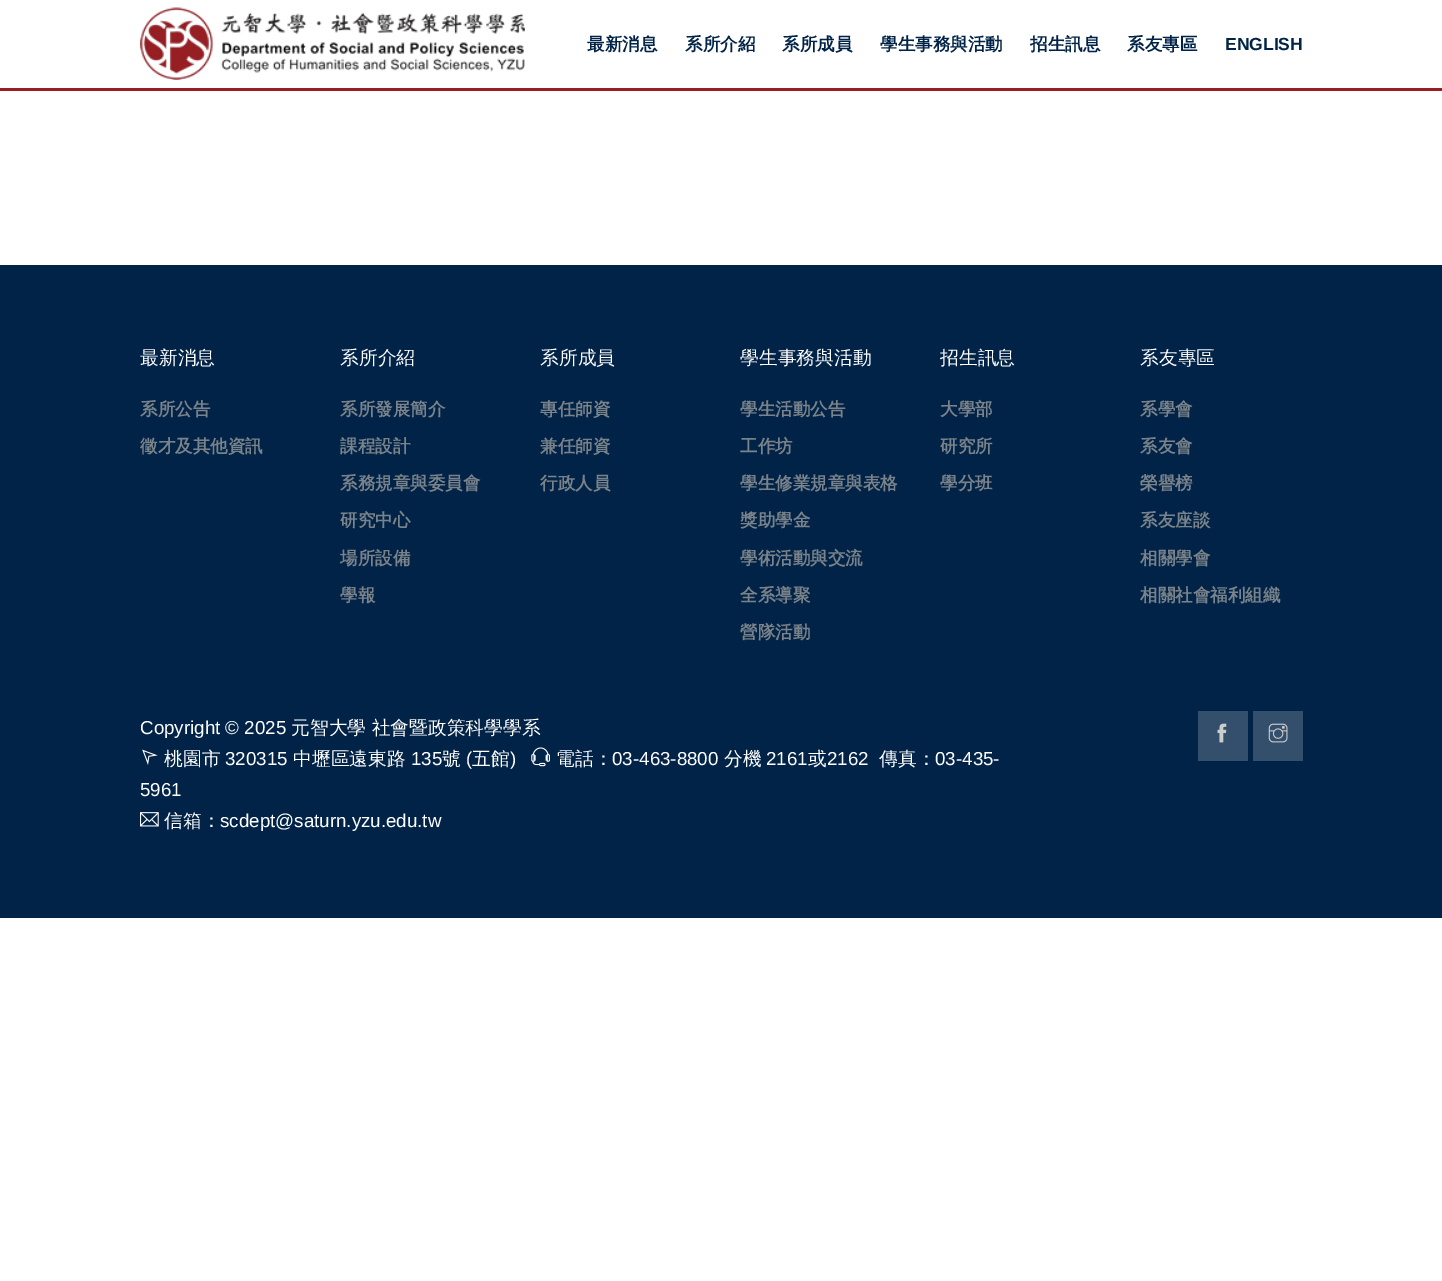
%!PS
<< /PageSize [1442 1281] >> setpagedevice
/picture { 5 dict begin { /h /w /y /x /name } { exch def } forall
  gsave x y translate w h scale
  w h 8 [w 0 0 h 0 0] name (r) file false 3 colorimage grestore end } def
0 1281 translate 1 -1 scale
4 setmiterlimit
1 setgray
0 0 1442 1281 rectfill
(img1.rgb) 140 7 385 73 picture
/WenQuanYiZenHei-Bold [17.5 0 0 -17.5 0 0] selectfont
0 0.137 0.278 setrgbcolor
587 50 moveto (最新消息) show
685 50 moveto (系所介紹) show
782 50 moveto (系所成員) show
880 50 moveto (學生事務與活動) show
1030 50 moveto (招生訊息) show
1127 50 moveto (系友專區) show
/LiberationSans-Bold [17.5 0 0 -17.5 0 0] selectfont
1225 50 moveto (ENGLISH) show
0.592 0.118 0.137 setrgbcolor
0 88 1442 3 rectfill
0 0.137 0.278 setrgbcolor
0 265 1442 653 rectfill
/WenQuanYiZenHei-Medium [18.75 0 0 -18.75 0 0] selectfont
1 setgray
140 364 moveto (最新消息) show
/WenQuanYiZenHei-Bold [17.5 0 0 -17.5 0 0] selectfont
0.482 0.514 0.541 setrgbcolor
140 415 moveto (系所公告) show
140 452 moveto (徵才及其他資訊) show
/WenQuanYiZenHei-Medium [18.75 0 0 -18.75 0 0] selectfont
1 setgray
340 364 moveto (系所介紹) show
/WenQuanYiZenHei-Bold [17.5 0 0 -17.5 0 0] selectfont
0.482 0.514 0.541 setrgbcolor
340 415 moveto (系所發展簡介) show
340 452 moveto (課程設計) show
340 489 moveto (系務規章與委員會) show
340 526 moveto (研究中心) show
340 564 moveto (場所設備) show
340 601 moveto (學報) show
/WenQuanYiZenHei-Medium [18.75 0 0 -18.75 0 0] selectfont
1 setgray
540 364 moveto (系所成員) show
/WenQuanYiZenHei-Bold [17.5 0 0 -17.5 0 0] selectfont
0.482 0.514 0.541 setrgbcolor
540 415 moveto (專任師資) show
540 452 moveto (兼任師資) show
540 489 moveto (行政人員) show
/WenQuanYiZenHei-Medium [18.75 0 0 -18.75 0 0] selectfont
1 setgray
740 364 moveto (學生事務與活動) show
/WenQuanYiZenHei-Bold [17.5 0 0 -17.5 0 0] selectfont
0.482 0.514 0.541 setrgbcolor
740 415 moveto (學生活動公告) show
740 452 moveto (工作坊) show
740 489 moveto (學生修業規章與表格) show
740 526 moveto (獎助學金) show
740 564 moveto (學術活動與交流) show
740 601 moveto (全系導聚) show
740 638 moveto (營隊活動) show
/WenQuanYiZenHei-Medium [18.75 0 0 -18.75 0 0] selectfont
1 setgray
940 364 moveto (招生訊息) show
/WenQuanYiZenHei-Bold [17.5 0 0 -17.5 0 0] selectfont
0.482 0.514 0.541 setrgbcolor
940 415 moveto (大學部) show
940 452 moveto (研究所) show
940 489 moveto (學分班) show
/WenQuanYiZenHei-Medium [18.75 0 0 -18.75 0 0] selectfont
1 setgray
1140 364 moveto (系友專區) show
/WenQuanYiZenHei-Bold [17.5 0 0 -17.5 0 0] selectfont
0.482 0.514 0.541 setrgbcolor
1140 415 moveto (系學會) show
1140 452 moveto (系友會) show
1140 489 moveto (榮譽榜) show
1140 526 moveto (系友座談) show
1140 564 moveto (相關學會) show
1140 601 moveto (相關社會福利組織) show
/LiberationSans-Regular [18.75 0 0 -18.75 0 0] selectfont
1 setgray
140 734 moveto (Copyright © 2025) show
/WenQuanYiZenHei-Medium [18.75 0 0 -18.75 0 0] selectfont
291 734 moveto (元智大學 社會暨政策科學學系) show
(img2.rgb) 142 749 16 16 picture
164 765 moveto (桃園市) show
/LiberationSans-Regular [18.75 0 0 -18.75 0 0] selectfont
225 765 moveto (320315) show
/WenQuanYiZenHei-Medium [18.75 0 0 -18.75 0 0] selectfont
293 765 moveto (中壢區遠東路) show
/LiberationSans-Regular [18.75 0 0 -18.75 0 0] selectfont
411 765 moveto (135) show
/WenQuanYiZenHei-Medium [18.75 0 0 -18.75 0 0] selectfont
442 765 moveto (號) show
/LiberationSans-Regular [18.75 0 0 -18.75 0 0] selectfont
466 765 moveto (\() show
/WenQuanYiZenHei-Medium [18.75 0 0 -18.75 0 0] selectfont
472 765 moveto (五館) show
/LiberationSans-Regular [18.75 0 0 -18.75 0 0] selectfont
510 765 moveto (\)) show
(img3.rgb) 531 747 19 20 picture
/WenQuanYiZenHei-Medium [18.75 0 0 -18.75 0 0] selectfont
556 765 moveto (電話：) show
/LiberationSans-Regular [18.75 0 0 -18.75 0 0] selectfont
612 765 moveto (03-463-8800) show
/WenQuanYiZenHei-Medium [18.75 0 0 -18.75 0 0] selectfont
724 765 moveto (分機) show
/LiberationSans-Regular [18.75 0 0 -18.75 0 0] selectfont
766 765 moveto (2161) show
/WenQuanYiZenHei-Medium [18.75 0 0 -18.75 0 0] selectfont
808 765 moveto (或) show
/LiberationSans-Regular [18.75 0 0 -18.75 0 0] selectfont
827 765 moveto (2162) show
/WenQuanYiZenHei-Medium [18.75 0 0 -18.75 0 0] selectfont
879 765 moveto (傳真：) show
/LiberationSans-Regular [18.75 0 0 -18.75 0 0] selectfont
935 765 moveto (03-435-) show
140 796 moveto (5961) show
(img4.rgb) 140 812 19 15 picture
/WenQuanYiZenHei-Medium [18.75 0 0 -18.75 0 0] selectfont
164 827 moveto (信箱：) show
/LiberationSans-Regular [18.75 0 0 -18.75 0 0] selectfont
220 827 moveto (scdept@saturn.yzu.edu.tw) show
0.2 0.31 0.424 setrgbcolor
1198 711 50 50 rectfill
(img5.rgb) 1217 723 10 20 picture
1253 711 50 50 rectfill
(img6.rgb) 1268 723 20 20 picture
showpage
